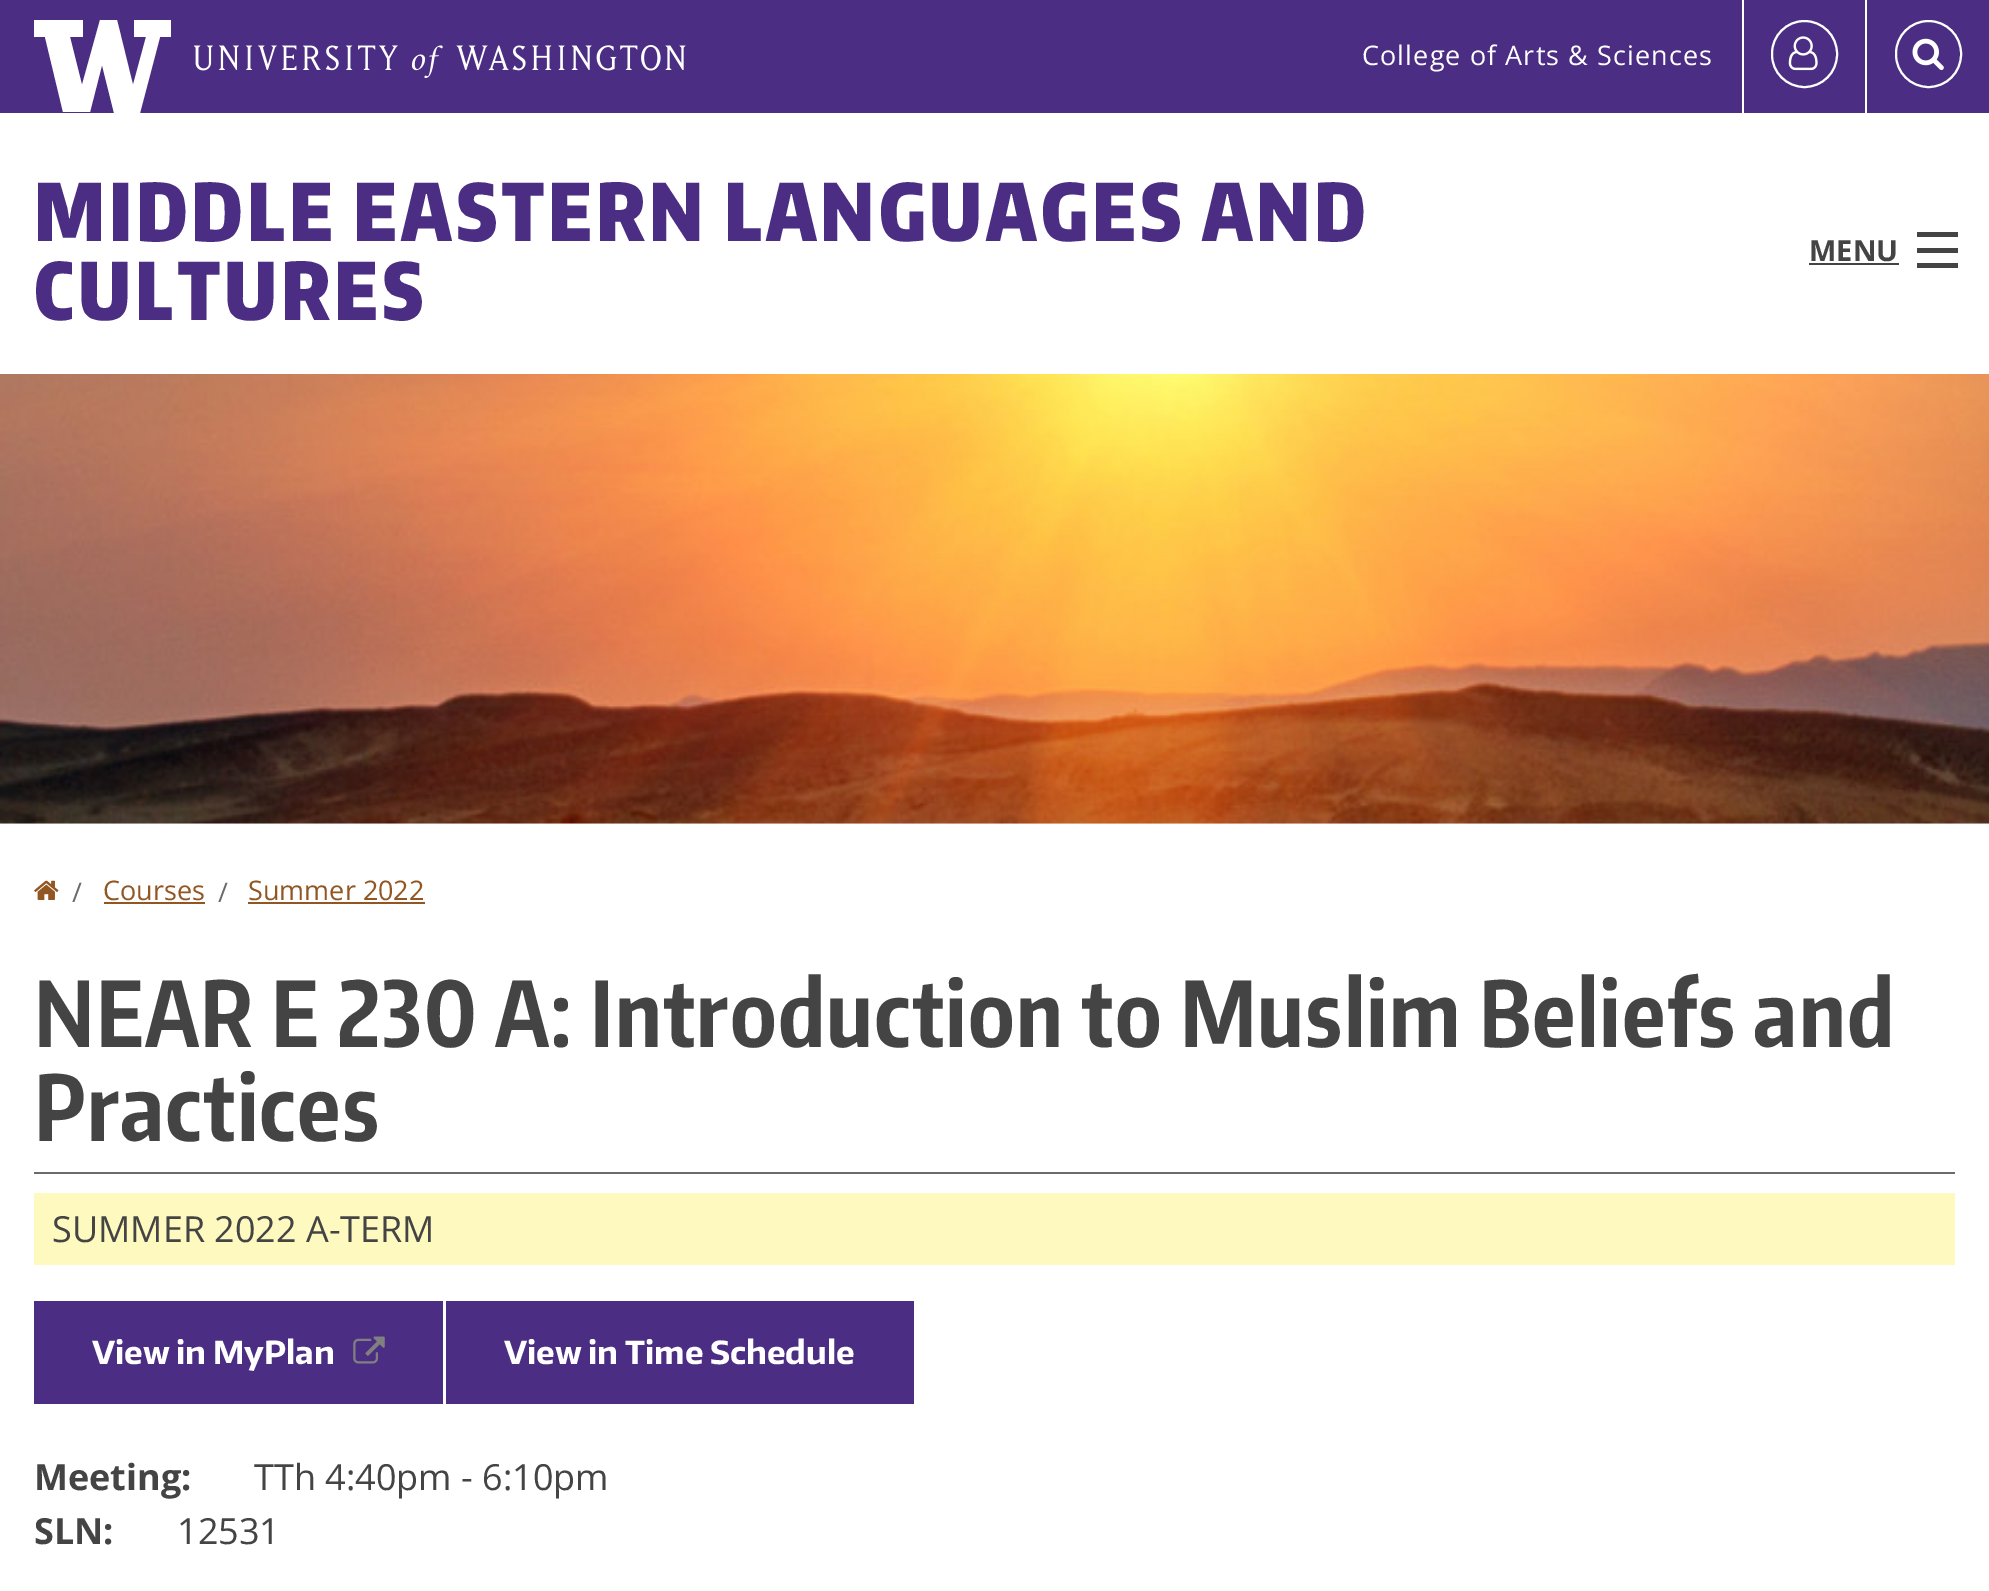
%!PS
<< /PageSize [1989 1591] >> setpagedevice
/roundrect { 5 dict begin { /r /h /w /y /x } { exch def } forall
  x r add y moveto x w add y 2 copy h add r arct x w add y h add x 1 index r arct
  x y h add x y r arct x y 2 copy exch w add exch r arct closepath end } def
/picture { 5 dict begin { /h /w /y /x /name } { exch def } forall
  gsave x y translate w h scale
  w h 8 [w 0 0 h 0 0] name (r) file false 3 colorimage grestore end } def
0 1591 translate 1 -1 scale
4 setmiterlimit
1 setgray
0 0 1989 1591 rectfill
0.294 0.18 0.514 setrgbcolor
0 0 1989 113 rectfill
1 setgray
newpath 134 20 moveto 134 37 lineto 146 37 lineto 133 85 lineto 117 20 lineto 100 20 lineto 82 85 lineto 70 37 lineto 83 37 lineto 83 20 lineto 34 20 lineto 34 37 lineto 45 37 lineto 63 112 lineto 90 112 lineto 102 65 lineto 114 113 lineto 140 113 lineto 160 37 lineto 171 37 lineto 171 20 lineto closepath fill
(img1.rgb) 194 45 492 34 picture
/OpenSans-Regular [27 0 0 -27 0 0] selectfont
1362 65 moveto 1.1 0 (College of Arts & Sciences) ashow
1742 0 2 113 rectfill
2 setlinewidth
1772 21 65 66 32.5 roundrect stroke
(img2.rgb) 1788 36 30 35 picture
1865 0 2 113 rectfill
1896 21 65 66 32.5 roundrect stroke
(img3.rgb) 1912 38 32 33 picture
/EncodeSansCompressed-Black [78.75 0 0 -78.75 0 0] selectfont
0.294 0.18 0.514 setrgbcolor
34 241 moveto 3.95 0 (MIDDLE EASTERN LANGUAGES AND) ashow
34 320 moveto 3.95 0 (CULTURES) ashow
/OpenSans-Bold [29 0 0 -29 0 0] selectfont
0.267 setgray
1809 261 moveto (MENU) show
1809 263 90 2 rectfill
1917 263 41 5 rectfill
1917 248 41 5 rectfill
1917 232 41 5 rectfill
0.937 setgray
0 823 1989 1 rectfill
(img4.rgb) 0 374 1989 450 picture
(img5.rgb) 34 880 25 20 picture
/OpenSans-Regular [27 0 0 -27 0 0] selectfont
0.42 setgray
72 902 moveto (/) show
0.569 0.337 0.133 setrgbcolor
103 900 moveto (Courses) show
104 902 101 2 rectfill
0.42 setgray
218 902 moveto (/) show
0.569 0.337 0.133 setrgbcolor
248 900 moveto (Summer 2022) show
248 902 177 2 rectfill
/EncodeSansCompressed-Bold [90 0 0 -90 0 0] selectfont
0.267 setgray
34 1047 moveto 1.1 0 (NEAR E 230 A: Introduction to Muslim Beliefs and) ashow
34 1141 moveto 1.1 0 (Practices) ashow
0.42 setgray
34 1172 1921 2 rectfill
0.996 0.976 0.749 setrgbcolor
34 1193 1921 72 rectfill
/OpenSans-Regular [36 0 0 -36 0 0] selectfont
0.267 setgray
52 1242 moveto (SUMMER 2022 A-TERM) show
0.294 0.18 0.514 setrgbcolor
34 1301 409 103 rectfill
/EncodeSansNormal-Bold [31.5 0 0 -31.5 0 0] selectfont
1 setgray
92 1364 moveto (View in MyPlan) show
(img6.rgb) 353 1336 32 28 picture
0.294 0.18 0.514 setrgbcolor
446 1301 468 103 rectfill
1 setgray
504 1364 moveto (View in Time Schedule) show
/OpenSans-Bold [36 0 0 -36 0 0] selectfont
0.267 setgray
34 1490 moveto (Meeting:) show
/OpenSans-Regular [36 0 0 -36 0 0] selectfont
254 1490 moveto (TTh 4:40pm - 6:10pm) show
/OpenSans-Bold [36 0 0 -36 0 0] selectfont
34 1544 moveto (SLN:) show
/OpenSans-Regular [36 0 0 -36 0 0] selectfont
177 1544 moveto (12531) show
showpage
